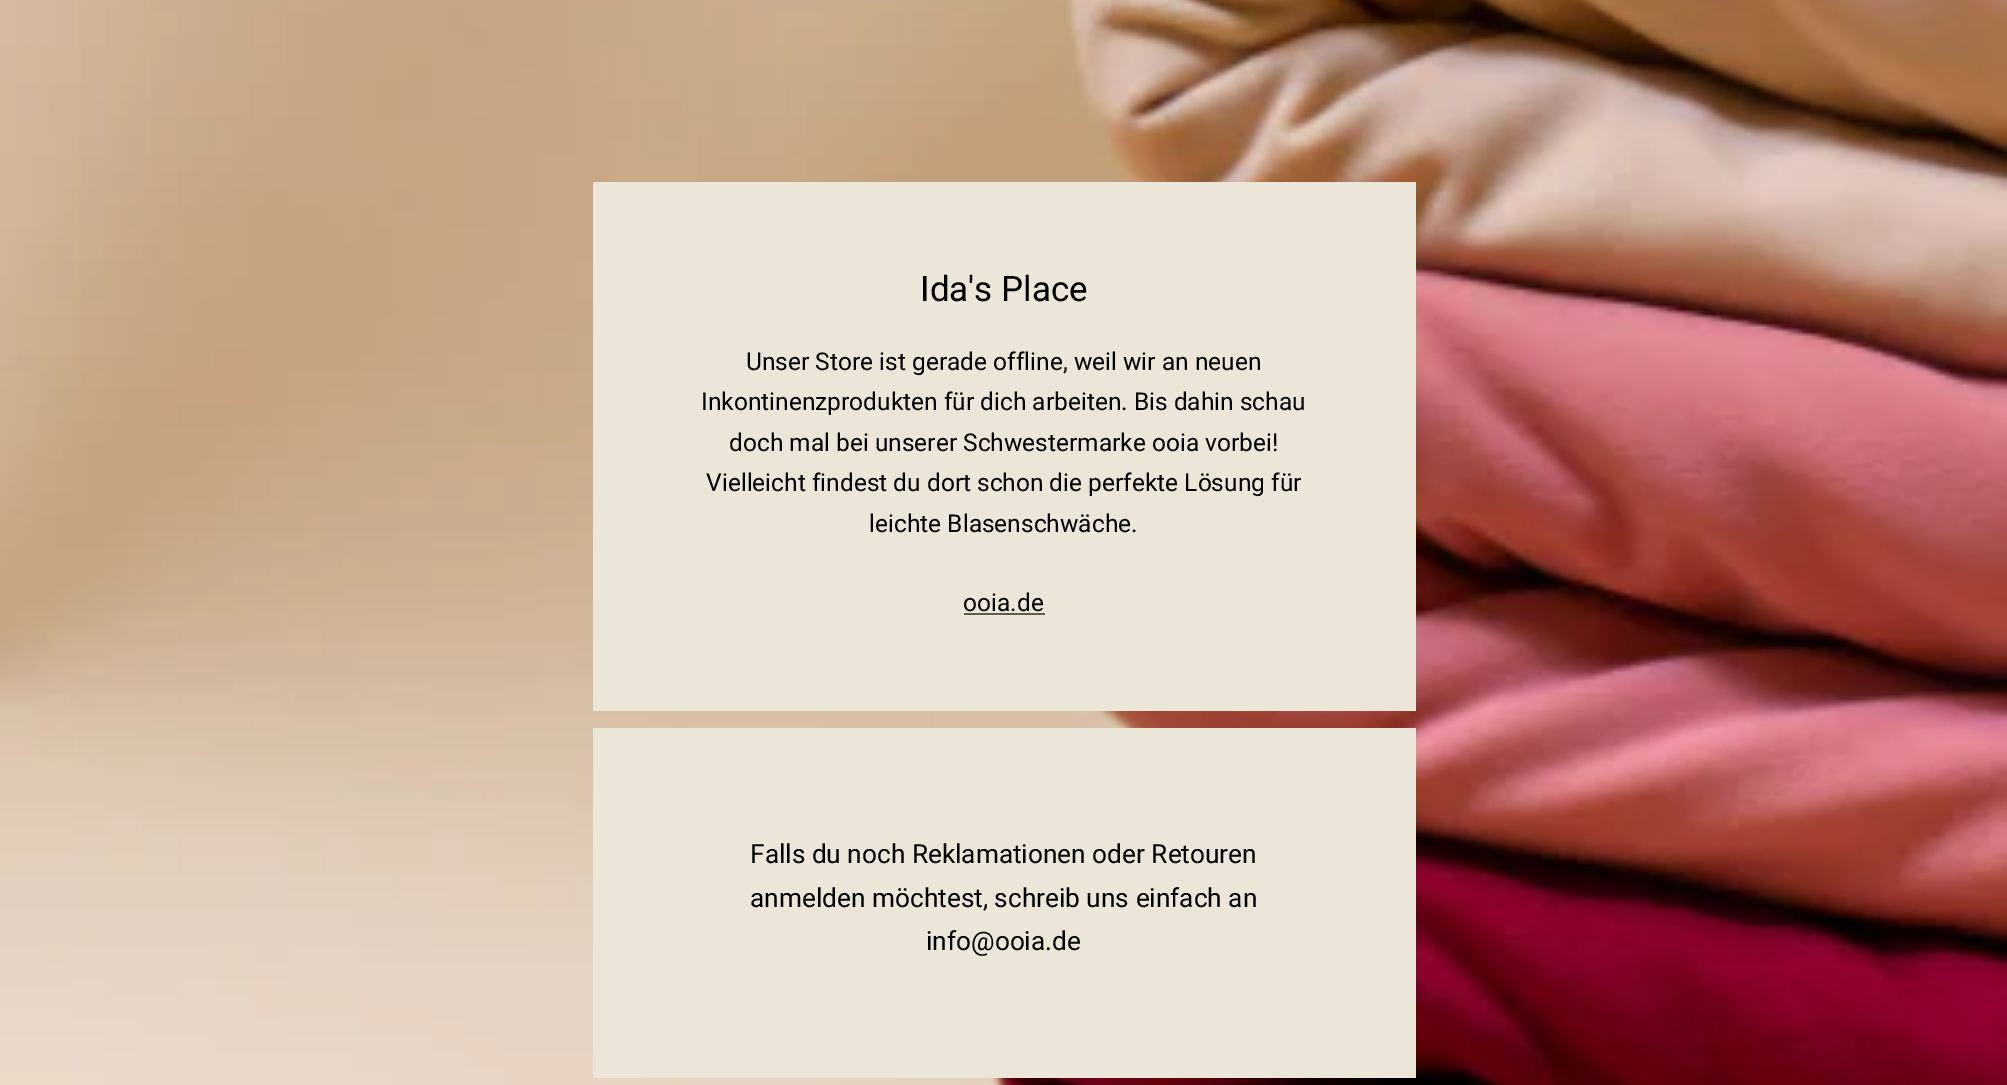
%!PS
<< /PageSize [2007 1085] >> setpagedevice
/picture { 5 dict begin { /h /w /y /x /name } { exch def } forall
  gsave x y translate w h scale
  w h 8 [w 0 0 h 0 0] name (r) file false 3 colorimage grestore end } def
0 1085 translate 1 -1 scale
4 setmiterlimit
1 setgray
0 0 2007 1085 rectfill
(img1.rgb) 0 0 2007 1085 picture
0.922 0.902 0.843 setrgbcolor
593 182 823 529 rectfill
/Roboto-Regular [35 0 0 -35 0 0] selectfont
0 setgray
920 301 moveto (Ida's Place) show
/Roboto-Regular [24.5 0 0 -24.5 0 0] selectfont
746 370 moveto (Unser Store ist gerade offline, weil wir an neuen) show
701 410 moveto (Inkontinenzprodukten für dich arbeiten. Bis dahin schau) show
729 451 moveto (doch mal bei unserer Schwestermarke ooia vorbei!) show
706 491 moveto (Vielleicht findest du dort schon die perfekte Lösung für) show
869 532 moveto (leichte Blasenschwäche.) show
963 611 moveto (ooia.de) show
0.369 0.361 0.337 setrgbcolor
964 613 81 2 rectfill
0.922 0.902 0.843 setrgbcolor
593 728 823 350 rectfill
/Roboto-Regular [26.25 0 0 -26.25 0 0] selectfont
0 setgray
750 863 moveto (Falls du noch Reklamationen oder Retouren) show
750 907 moveto (anmelden möchtest, schreib uns einfach an) show
926 950 moveto (info@ooia.de) show
showpage
